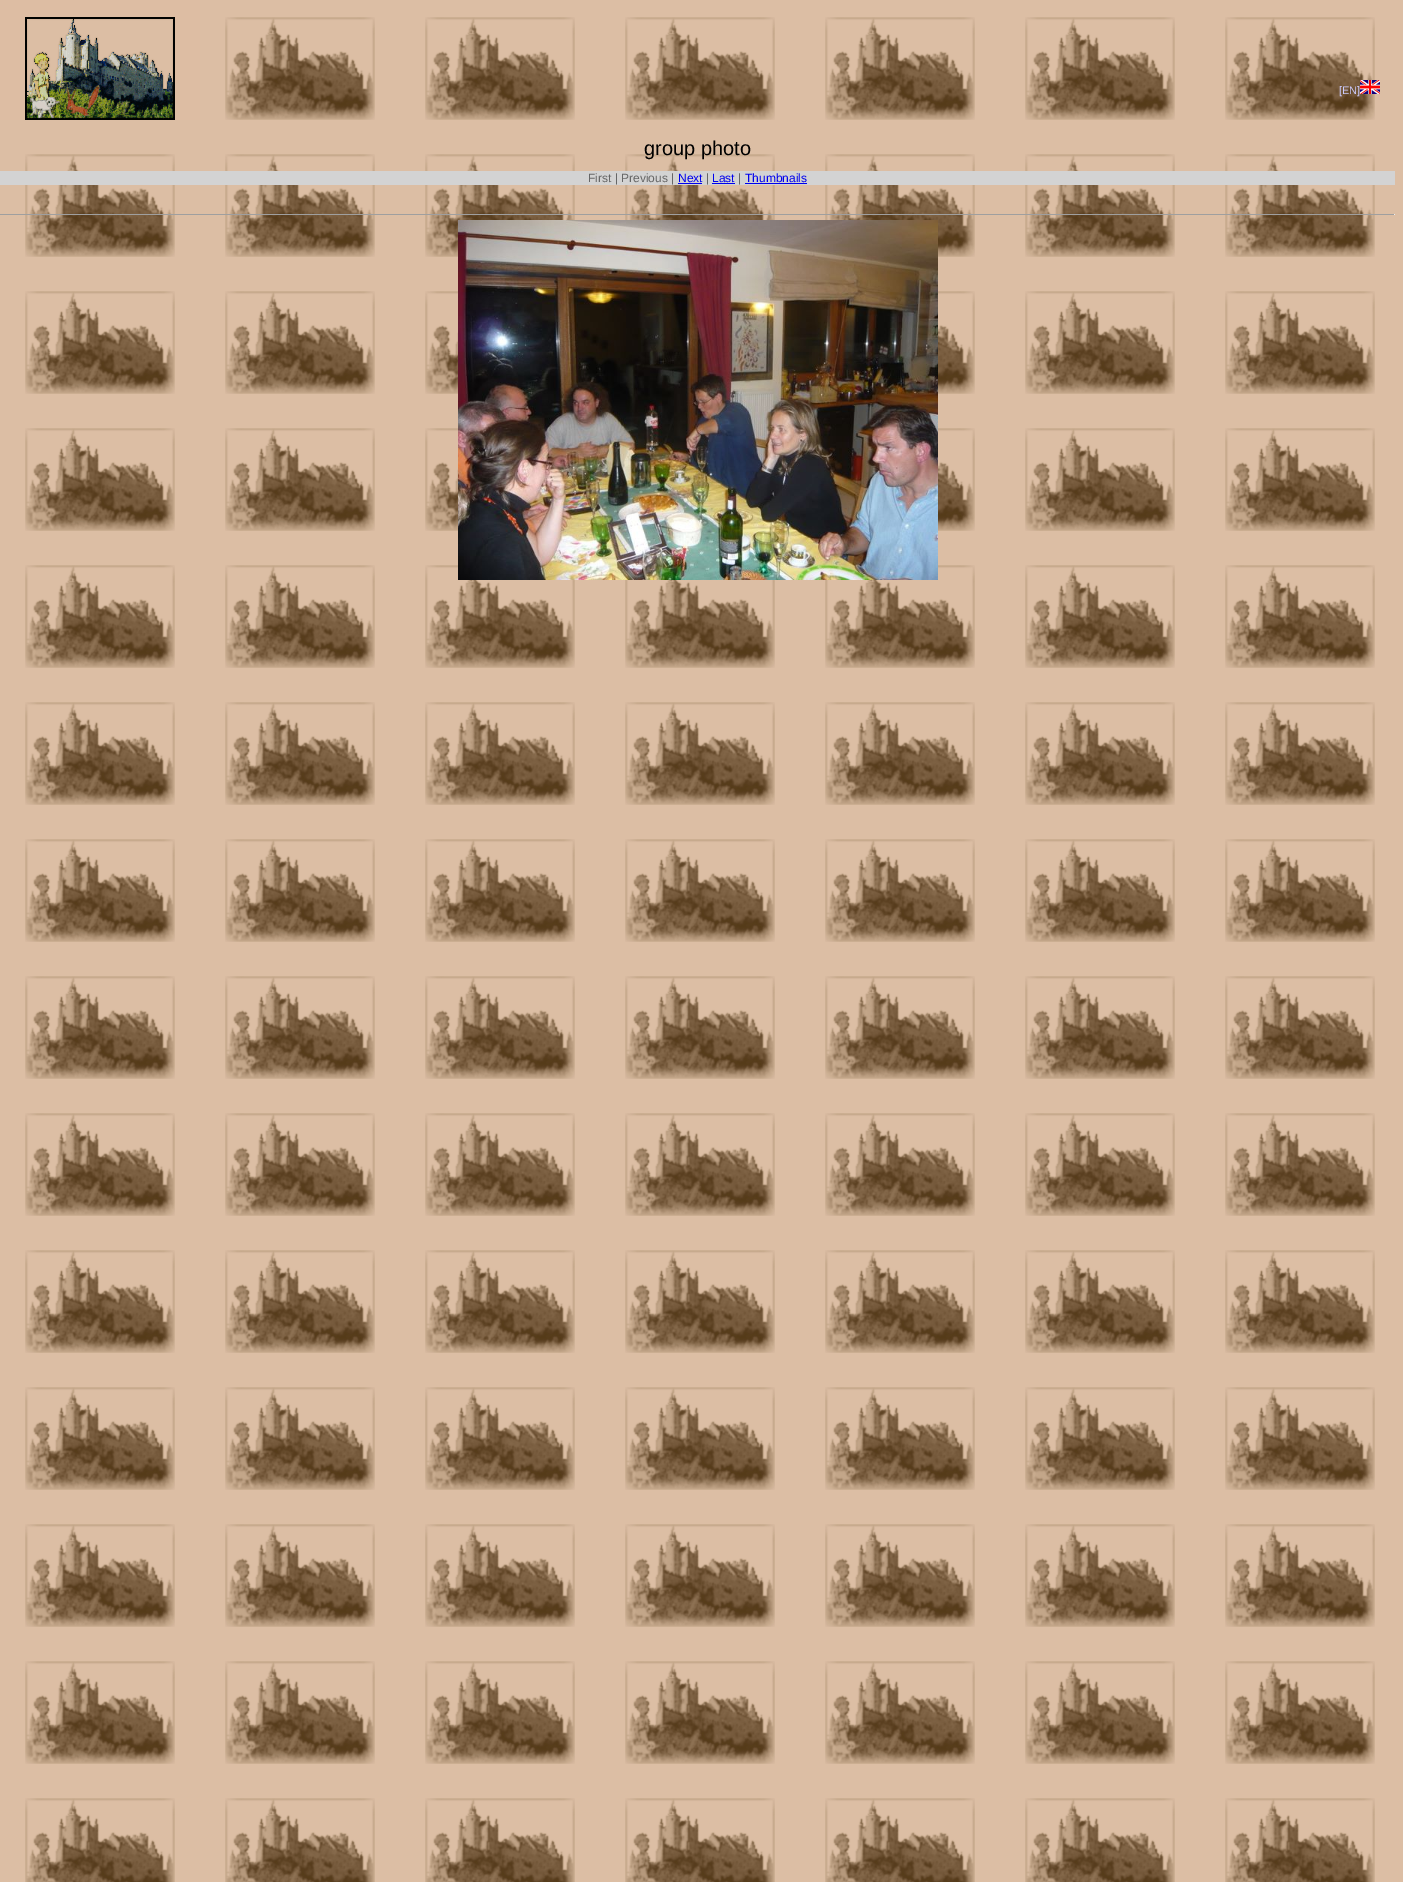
%!PS
<< /PageSize [1403 1882] >> setpagedevice
/picture { 5 dict begin { /h /w /y /x /name } { exch def } forall
  gsave x y translate w h scale
  w h 8 [w 0 0 h 0 0] name (r) file false 3 colorimage grestore end } def
0 1882 translate 1 -1 scale
4 setmiterlimit
1 setgray
0 0 1403 1882 rectfill
(img1.rgb) 0 0 1403 1882 picture
(img2.rgb) 0 0 200 120 picture
/LiberationSans-Regular [11 0 0 -11 0 0] selectfont
0.8 0.8 1 setrgbcolor
1339 94 moveto ([EN]) show
(img3.rgb) 1360 80 20 14 picture
/LiberationSans-Regular [20 0 0 -20 0 0] selectfont
0 setgray
644 155 moveto (group photo) show
0.827 setgray
0 171 1395 14 rectfill
/LiberationSans-Regular [12 0 0 -12 0 0] selectfont
0.4 setgray
588 182 moveto (First | Previous |) show
0 0 0.933 setrgbcolor
678 182 moveto (Next) show
678 183 24 1 rectfill
0.4 setgray
706 182 moveto (|) show
0 0 0.933 setrgbcolor
712 182 moveto (Last) show
712 183 23 1 rectfill
0.4 setgray
738 182 moveto (|) show
0 0 0.933 setrgbcolor
745 182 moveto (Thumbnails) show
745 183 62 1 rectfill
0.624 setgray
0 214 1395 1 rectfill
0.933 setgray
1394 214 1 1 rectfill
(img4.rgb) 458 220 480 360 picture
showpage
